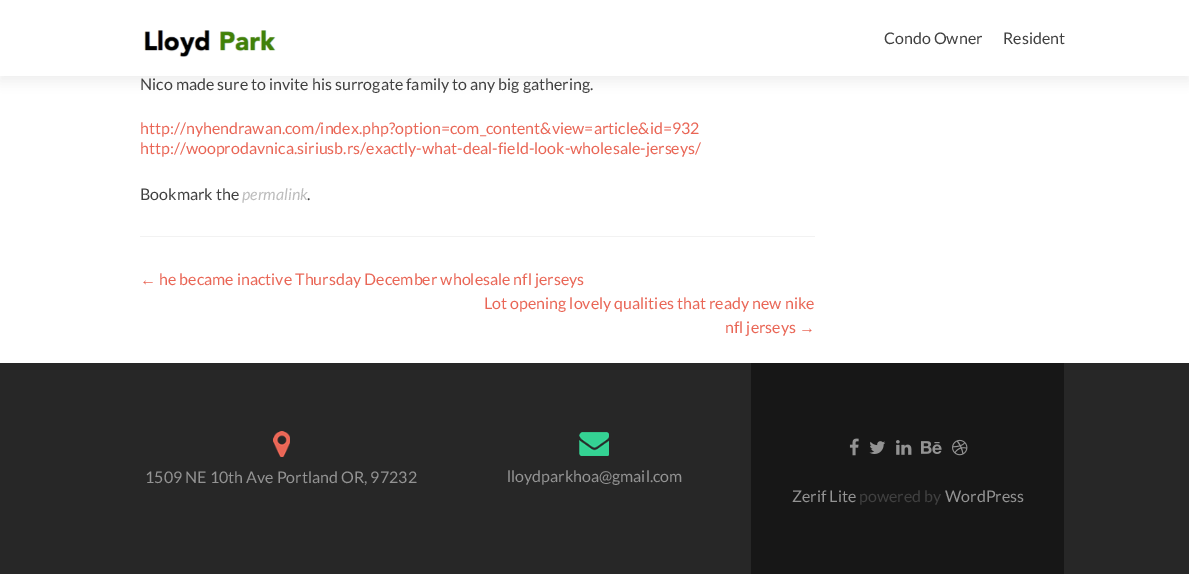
%!PS
<< /PageSize [1189 574] /PageUsesTransparency true >> setpagedevice
/alpha { dup .setfillconstantalpha .setstrokeconstantalpha } def
/roundrect { 5 dict begin { /r /h /w /y /x } { exch def } forall
  x r add y moveto x w add y 2 copy h add r arct x w add y h add x 1 index r arct
  x y h add x y r arct x y 2 copy exch w add exch r arct closepath end } def
/shadow { 12 dict begin { /a /b /q /h /w /y /x } { exch def } forall gsave /was 0 def
  9 -2 -9 { dup b mul 4 div /e exch def 1 sub .425 mul 2.718 exch exp 1 add a .99 .min exch div /now exch def
    1 1 now sub 1 was sub div sub alpha /was now def
    w h .min e 2 mul add 0 gt { x e sub y e sub w e 2 mul add h e 2 mul add
      q e add b .6 mul add w h .min 2 div e add .min 0 .max roundrect fill } if } for grestore end } def
/picture { 5 dict begin { /h /w /y /x /name } { exch def } forall
  gsave x y translate w h scale
  w h 8 [w 0 0 h 0 0] name (r) file false 3 colorimage grestore end } def
0 .pushpdf14devicefilter
0 574 translate 1 -1 scale
4 setmiterlimit
1 setgray
0 0 1189 574 rectfill
0.196 setgray
0 5 1189 76 0 5.5 0.08 shadow
1 setgray
0 0 1189 76 rectfill
(img1.rgb) 144 30 132 27 picture
/Lato-Regular [16 0 0 -16 0 0] selectfont
0.251 setgray
884 44 moveto (Condo Owner) show
1003 44 moveto (Resident) show
0.949 setgray
140 236 675 1 rectfill
0.251 setgray
140 90 moveto (Nico made sure to invite his surrogate family to any big gathering.) show
0.914 0.4 0.337 setrgbcolor
140 134 moveto (http://nyhendrawan.com/index.php?option=com_content&view=article&id=932) show
140 154 moveto (http://wooprodavnica.siriusb.rs/exactly-what-deal-field-look-wholesale-jerseys/) show
0.251 setgray
140 200 moveto (Bookmark the) show
/Lato-Italic [16 0 0 -16 0 0] selectfont
0.741 setgray
242 200 moveto (permalink) show
/Lato-Regular [16 0 0 -16 0 0] selectfont
0.251 setgray
307 200 moveto (.) show
/LiberationSans-Regular [16 0 0 -16 0 0] selectfont
0.914 0.4 0.337 setrgbcolor
140 285 moveto (←) show
/Lato-Regular [16 0 0 -16 0 0] selectfont
159 285 moveto (he became inactive Thursday December wholesale nfl jerseys) show
484 309 moveto (Lot opening lovely qualities that ready new nike) show
725 333 moveto (nfl jerseys) show
/LiberationSans-Regular [16 0 0 -16 0 0] selectfont
799 333 moveto (→) show
0.153 setgray
0 363 1189 211 rectfill
(img2.rgb) 273 431 17 26 picture
/Lato-Regular [16 0 0 -16 0 0] selectfont
0.576 setgray
145 483 moveto (1509 NE 10th Ave Portland OR, 97232) show
(img3.rgb) 579 432 30 24 picture
507 482 moveto (lloydparkhoa@gmail.com) show
0.09 setgray
751 363 313 211 rectfill
(img4.rgb) 849 438 10 18 picture
(img5.rgb) 869 441 17 13 picture
(img6.rgb) 896 440 16 15 picture
(img7.rgb) 921 441 21 13 picture
(img8.rgb) 952 439 16 17 picture
0.576 setgray
792 502 moveto (Zerif Lite) show
0.251 setgray
859 502 moveto (powered by) show
0.576 setgray
945 502 moveto (WordPress) show
.poppdf14devicefilter showpage
